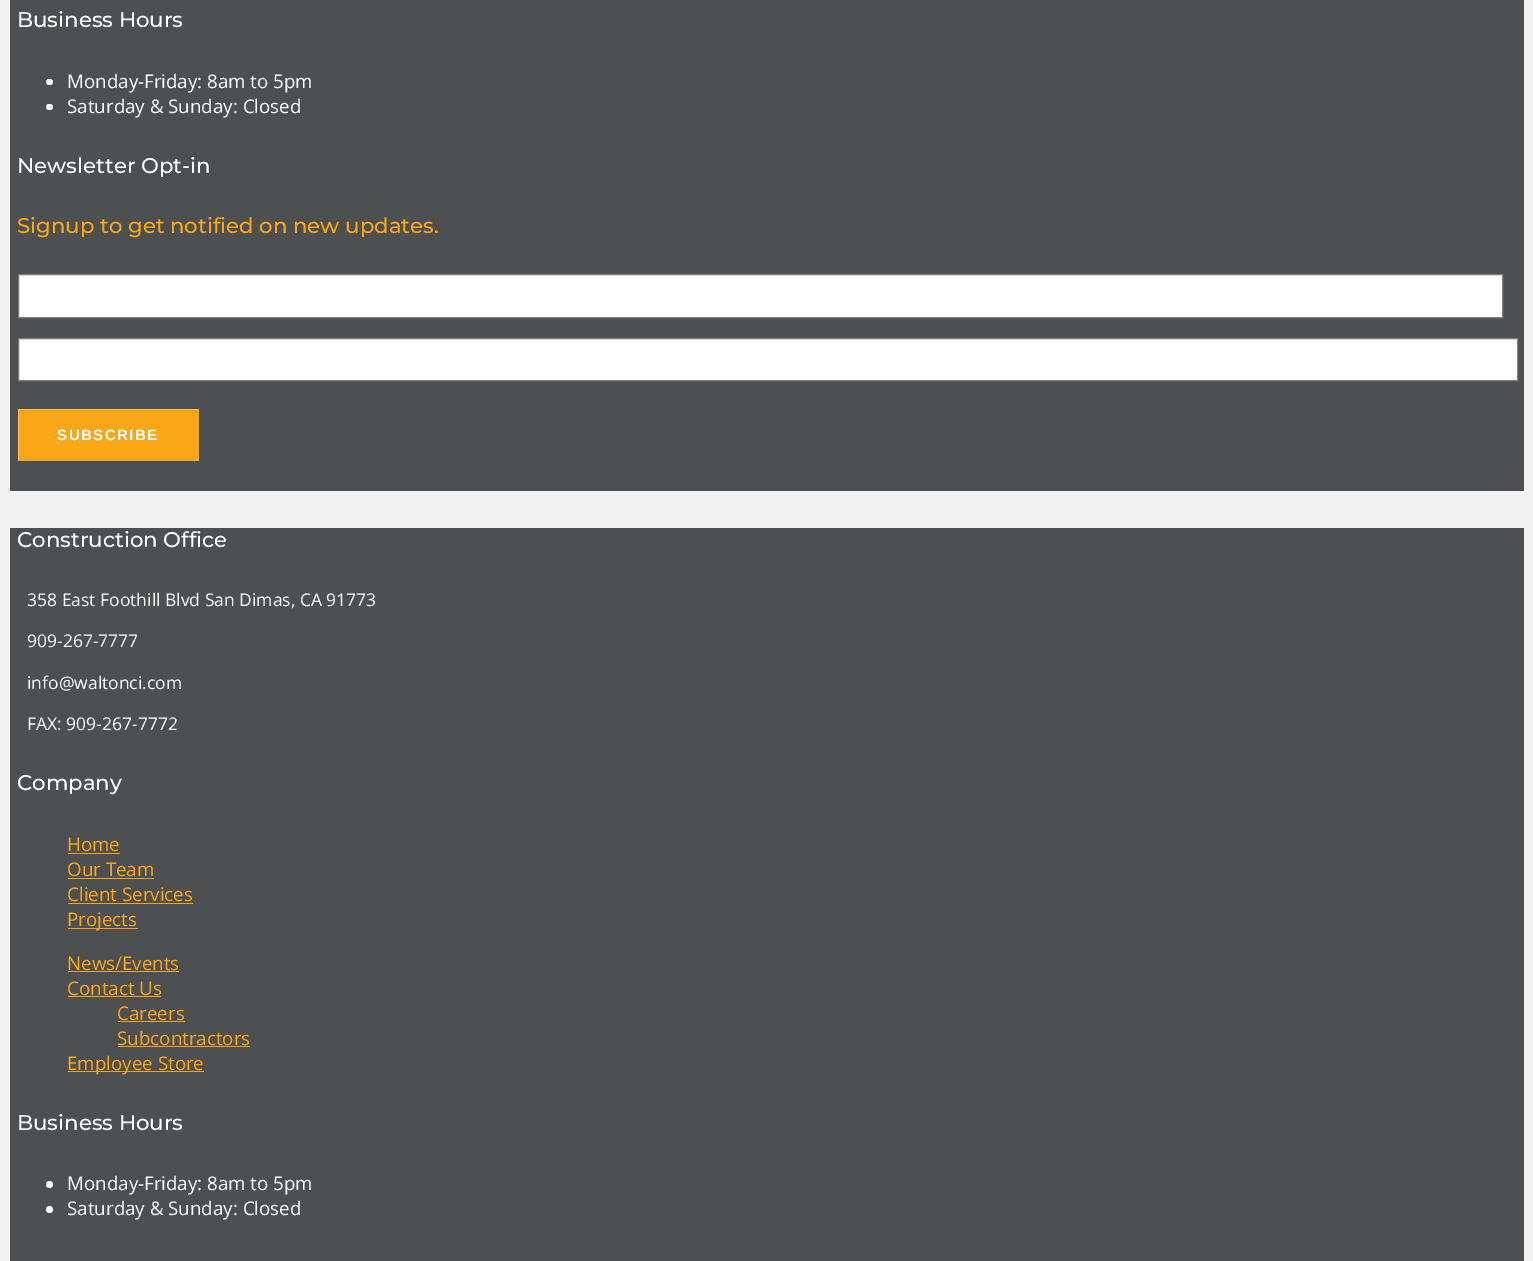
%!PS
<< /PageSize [1533 1261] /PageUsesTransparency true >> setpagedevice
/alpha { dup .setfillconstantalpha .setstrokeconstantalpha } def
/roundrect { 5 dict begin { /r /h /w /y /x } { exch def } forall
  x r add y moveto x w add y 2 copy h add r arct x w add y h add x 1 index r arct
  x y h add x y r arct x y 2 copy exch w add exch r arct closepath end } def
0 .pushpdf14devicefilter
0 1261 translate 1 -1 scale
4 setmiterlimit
0.949 setgray
0 0 1533 1261 rectfill
0.306 0.31 0.314 setrgbcolor
10 0 1514 491 rectfill
/Montserrat-Medium [21.25 0 0 -21.25 0 0] selectfont
1 setgray
17 27 moveto (Business Hours) show
46 79 7 6 3 roundrect fill
/OpenSans-Regular [18.75 0 0 -18.75 0 0] selectfont
67 88 moveto (Monday-Friday: 8am to 5pm) show
46 104 7 6 3 roundrect fill
67 113 moveto (Saturday & Sunday: Closed) show
/Montserrat-Medium [21.25 0 0 -21.25 0 0] selectfont
17 173 moveto (Newsletter Opt-in) show
0.976 0.651 0.094 setrgbcolor
17 233 moveto (Signup to get notified on new updates.) show
1 setgray
19 275 1483 42 rectfill
0.976 setgray
19 275 1482 3 rectfill
0.502 setgray
18.5 274.5 1484 43 rectstroke
1 setgray
19 339 1498 41 rectfill
0.976 setgray
19 339 1497 3 rectfill
0.502 setgray
18.5 338.5 1499 42 rectstroke
0.976 0.651 0.094 setrgbcolor
18 409 181 52 rectfill
0.953 0.635 0.09 setrgbcolor
19 410 179 3 rectfill
0.984 0.737 0.322 setrgbcolor
newpath 18 409 moveto 199 409 lineto 198 410 lineto 19 410 lineto closepath fill
0.25 alpha
0.667 setgray
newpath 199 409 moveto 199 461 lineto 198 460 lineto 198 410 lineto closepath fill
newpath 199 461 moveto 18 461 lineto 19 460 lineto 198 460 lineto closepath fill
1 setgray
newpath 18 461 moveto 18 409 lineto 19 410 lineto 19 460 lineto closepath fill
/LiberationSans-Bold [15 0 0 -15 0 0] selectfont
1 alpha
57 440 moveto 1.5 0 (SUBSCRIBE) ashow
0.306 0.31 0.314 setrgbcolor
10 528 1514 733 rectfill
/Montserrat-Medium [21.25 0 0 -21.25 0 0] selectfont
1 setgray
17 547 moveto (Construction Office) show
/OpenSans-Regular [17.5 0 0 -17.5 0 0] selectfont
27 606 moveto (358 East Foothill Blvd San Dimas, CA 91773) show
27 647 moveto (909-267-7777) show
27 689 moveto (info@waltonci.com) show
27 730 moveto (FAX: 909-267-7772) show
/Montserrat-Medium [21.25 0 0 -21.25 0 0] selectfont
17 790 moveto (Company) show
/OpenSans-Regular [18.75 0 0 -18.75 0 0] selectfont
0.976 0.651 0.094 setrgbcolor
67 851 moveto (Home) show
68 853 52 1 rectfill
67 876 moveto (Our Team) show
68 878 86 1 rectfill
67 901 moveto (Client Services) show
68 903 125 1 rectfill
68 928 70 1 rectfill
67 926 moveto (Projects) show
67 970 moveto (News/Events) show
68 971 111 1 rectfill
67 995 moveto (Contact Us) show
68 996 93 1 rectfill
117 1020 moveto (Careers) show
118 1021 67 1 rectfill
117 1045 moveto (Subcontractors) show
118 1046 132 1 rectfill
68 1071 136 1 rectfill
67 1070 moveto (Employee Store) show
/Montserrat-Medium [21.25 0 0 -21.25 0 0] selectfont
1 setgray
17 1130 moveto (Business Hours) show
newpath 49.5 1184.5 3.5 0 360 arc closepath fill
/OpenSans-Regular [18.75 0 0 -18.75 0 0] selectfont
67 1190 moveto (Monday-Friday: 8am to 5pm) show
newpath 49.5 1209.5 3.5 0 360 arc closepath fill
67 1215 moveto (Saturday & Sunday: Closed) show
.poppdf14devicefilter showpage
